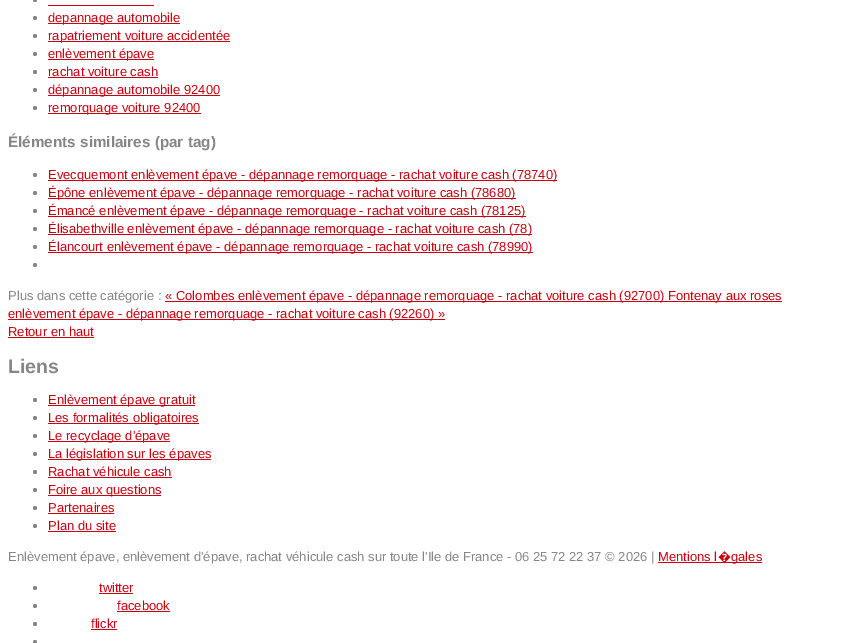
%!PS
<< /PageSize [850 643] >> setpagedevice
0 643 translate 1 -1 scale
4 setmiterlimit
1 setgray
0 0 850 643 rectfill
0.525 setgray
newpath 35 0 2 0 360 arc closepath fill
0.788 0 0.055 setrgbcolor
48 5 106 1 rectfill
0.525 setgray
newpath 35 18 2 0 360 arc closepath fill
0.788 0 0.055 setrgbcolor
48 23 132 1 rectfill
/LiberationSans-Regular [13 0 0 -13 0 0] selectfont
48 22 moveto (depannage automobile) show
0.525 setgray
newpath 35 36 2 0 360 arc closepath fill
0.788 0 0.055 setrgbcolor
48 41 182 1 rectfill
48 40 moveto (rapatriement voiture accidentée) show
0.525 setgray
newpath 35 54 2 0 360 arc closepath fill
0.788 0 0.055 setrgbcolor
48 59 106 1 rectfill
48 58 moveto (enlèvement épave) show
0.525 setgray
newpath 35 72 2 0 360 arc closepath fill
0.788 0 0.055 setrgbcolor
48 76 moveto (rachat voiture cash) show
48 77 110 1 rectfill
0.525 setgray
newpath 35 90 2 0 360 arc closepath fill
0.788 0 0.055 setrgbcolor
48 95 172 1 rectfill
48 94 moveto (dépannage automobile 92400) show
0.525 setgray
newpath 35 108 2 0 360 arc closepath fill
0.788 0 0.055 setrgbcolor
48 113 153 1 rectfill
48 112 moveto (remorquage voiture 92400) show
/LiberationSans-Bold [15.25 0 0 -15.25 0 0] selectfont
0.525 setgray
8 147 moveto (Éléments similaires \(par tag\)) show
newpath 35 175 2 0 360 arc closepath fill
0.788 0 0.055 setrgbcolor
48 180 509 1 rectfill
/LiberationSans-Regular [13 0 0 -13 0 0] selectfont
48 179 moveto (Evecquemont enlèvement épave - dépannage remorquage - rachat voiture cash \(78740\)) show
0.525 setgray
newpath 35 193 2 0 360 arc closepath fill
0.788 0 0.055 setrgbcolor
48 198 468 1 rectfill
48 197 moveto (Épône enlèvement épave - dépannage remorquage - rachat voiture cash \(78680\)) show
0.525 setgray
newpath 35 211 2 0 360 arc closepath fill
0.788 0 0.055 setrgbcolor
48 216 478 1 rectfill
48 215 moveto (Émancé enlèvement épave - dépannage remorquage - rachat voiture cash \(78125\)) show
0.525 setgray
newpath 35 229 2 0 360 arc closepath fill
0.788 0 0.055 setrgbcolor
48 234 484 1 rectfill
48 233 moveto (Élisabethville enlèvement épave - dépannage remorquage - rachat voiture cash \(78\)) show
0.525 setgray
newpath 35 247 2 0 360 arc closepath fill
0.788 0 0.055 setrgbcolor
48 252 485 1 rectfill
48 251 moveto (Élancourt enlèvement épave - dépannage remorquage - rachat voiture cash \(78990\)) show
0.525 setgray
newpath 35 265 2 0 360 arc closepath fill
8 300 moveto (Plus dans cette catégorie :) show
0.788 0 0.055 setrgbcolor
165 301 617 1 rectfill
165 300 moveto (« Colombes enlèvement épave - dépannage remorquage - rachat voiture cash \(92700\) Fontenay aux roses) show
8 319 437 1 rectfill
8 318 moveto (enlèvement épave - dépannage remorquage - rachat voiture cash \(92260\) ») show
8 336 moveto (Retour en haut) show
8 337 86 1 rectfill
/LiberationSans-Bold [19.5 0 0 -19.5 0 0] selectfont
0.525 setgray
8 373 moveto (Liens) show
newpath 35 400 2 0 360 arc closepath fill
0.788 0 0.055 setrgbcolor
48 405 147 1 rectfill
/LiberationSans-Regular [13 0 0 -13 0 0] selectfont
48 404 moveto (Enlèvement épave gratuit) show
0.525 setgray
newpath 35 418 2 0 360 arc closepath fill
0.788 0 0.055 setrgbcolor
48 423 151 1 rectfill
48 422 moveto (Les formalités obligatoires) show
0.525 setgray
newpath 35 436 2 0 360 arc closepath fill
0.788 0 0.055 setrgbcolor
48 441 122 1 rectfill
48 440 moveto (Le recyclage d'épave) show
0.525 setgray
newpath 35 454 2 0 360 arc closepath fill
0.788 0 0.055 setrgbcolor
48 459 163 1 rectfill
48 458 moveto (La législation sur les épaves) show
0.525 setgray
newpath 35 472 2 0 360 arc closepath fill
0.788 0 0.055 setrgbcolor
48 476 moveto (Rachat véhicule cash) show
48 477 124 1 rectfill
0.525 setgray
newpath 35 490 2 0 360 arc closepath fill
0.788 0 0.055 setrgbcolor
48 495 113 1 rectfill
48 494 moveto (Foire aux questions) show
0.525 setgray
newpath 35 508 2 0 360 arc closepath fill
0.788 0 0.055 setrgbcolor
48 512 moveto (Partenaires) show
48 513 66 1 rectfill
0.525 setgray
newpath 35 526 2 0 360 arc closepath fill
0.788 0 0.055 setrgbcolor
48 530 moveto (Plan du site) show
48 531 68 1 rectfill
0.525 setgray
8 561 moveto (Enlèvement épave, enlèvement d'épave, rachat véhicule cash sur toute l'Ile de France - 06 25 72 22 37 © 2026 |) show
0.788 0 0.055 setrgbcolor
658 561 moveto (Mentions l) show
658 562 104 1 rectfill
/NotoSans-Regular [13 0 0 -13 0 0] selectfont
718 561 moveto (�) show
/LiberationSans-Regular [13 0 0 -13 0 0] selectfont
731 561 moveto (gales) show
0.525 setgray
newpath 35 588 2 0 360 arc closepath fill
0.788 0 0.055 setrgbcolor
99 592 moveto (twitter) show
99 593 34 1 rectfill
0.525 setgray
newpath 35 606 2 0 360 arc closepath fill
0.788 0 0.055 setrgbcolor
117 610 moveto (facebook) show
117 611 53 1 rectfill
0.525 setgray
newpath 35 624 2 0 360 arc closepath fill
0.788 0 0.055 setrgbcolor
91 628 moveto (flickr) show
91 629 26 1 rectfill
0.525 setgray
newpath 35 642 2 0 360 arc closepath fill
showpage
